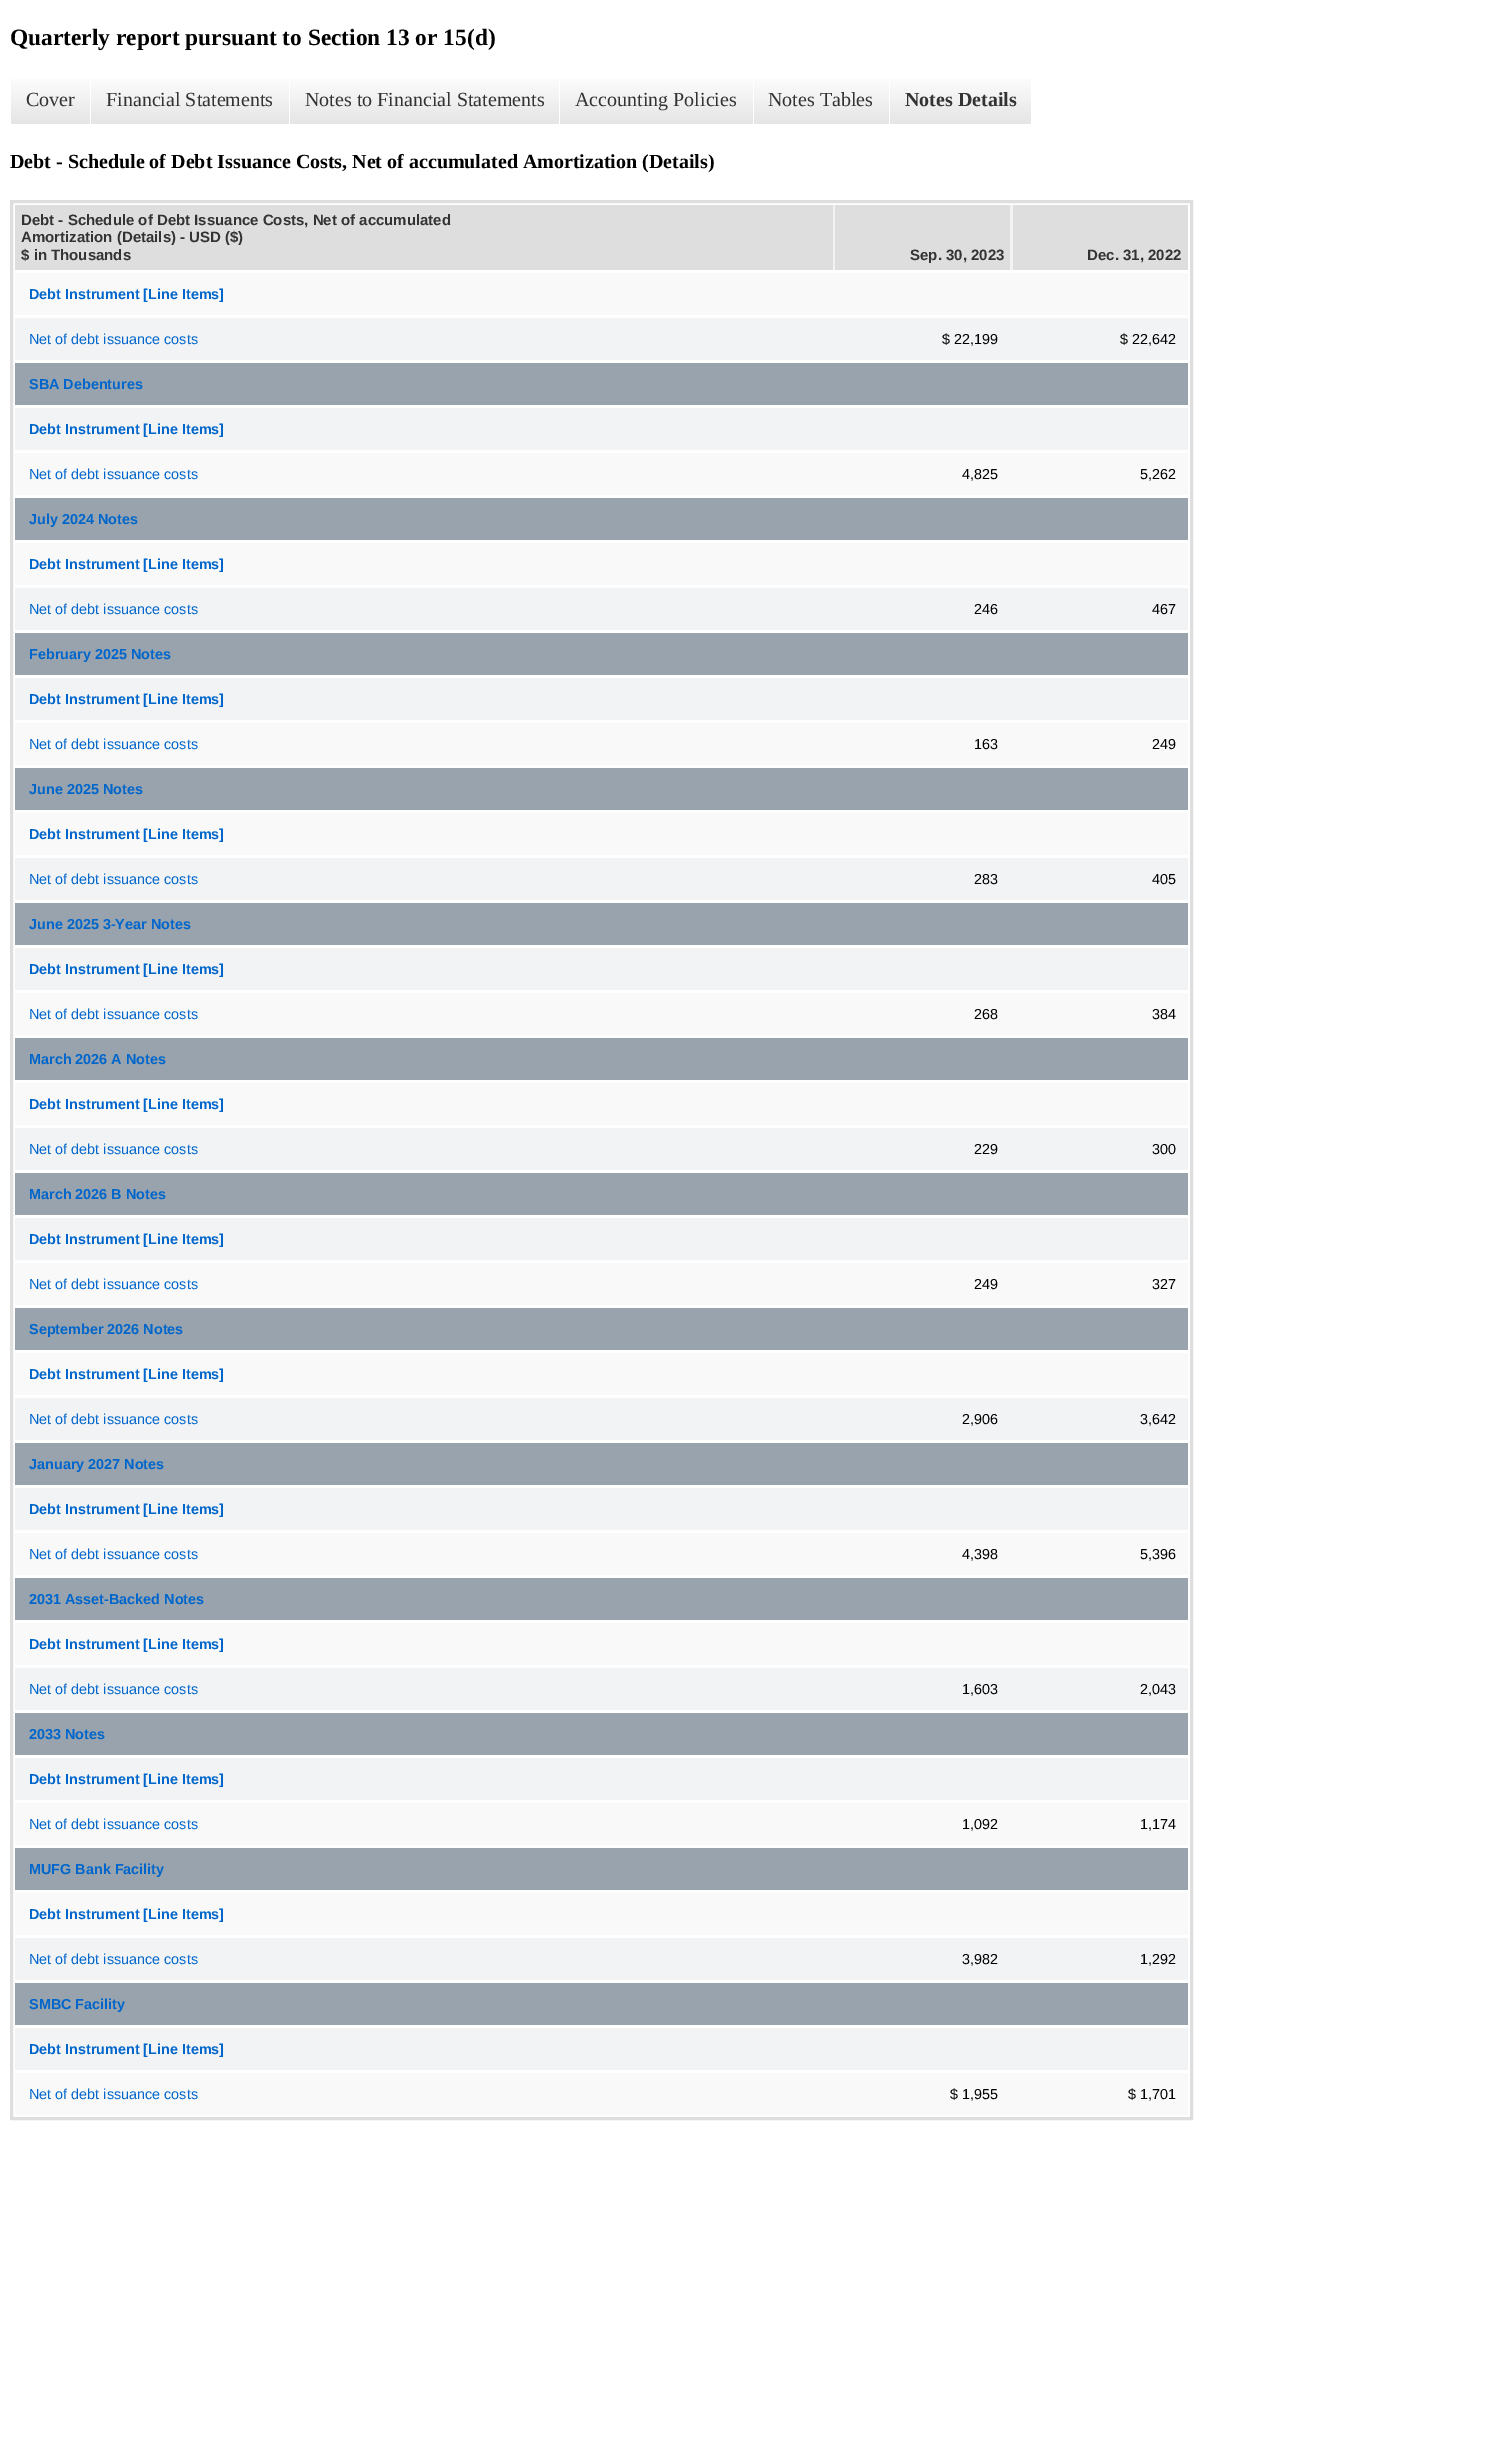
%!PS
<< /PageSize [1498 2441] >> setpagedevice
0 2441 translate 1 -1 scale
4 setmiterlimit
1 setgray
0 0 1498 2441 rectfill
/LiberationSerif-Bold [23.4 0 0 -23.4 0 0] selectfont
0 setgray
10 45 moveto (Quarterly report pursuant to Section 13 or 15\(d\)) show
gsave newpath 11 79 moveto 90 79 lineto 90 124 lineto 11 124 lineto closepath clip newpath
<< /ShadingType 2 /ColorSpace /DeviceRGB /Coords [51 74 51 124] /Extend [true true] /Function << /FunctionType 2 /Domain [0 1] /C0 [1 1 1] /C1 [0.898 0.898 0.898] /N 1 >> >> shfill grestore
/LiberationSerif-Regular [20 0 0 -20 0 0] selectfont
0.2 setgray
26 106 moveto (Cover) show
gsave newpath 91 79 moveto 289 79 lineto 289 124 lineto 91 124 lineto closepath clip newpath
<< /ShadingType 2 /ColorSpace /DeviceRGB /Coords [190 74 190 124] /Extend [true true] /Function << /FunctionType 2 /Domain [0 1] /C0 [1 1 1] /C1 [0.898 0.898 0.898] /N 1 >> >> shfill grestore
106 106 moveto (Financial Statements) show
gsave newpath 290 79 moveto 559 79 lineto 559 124 lineto 290 124 lineto closepath clip newpath
<< /ShadingType 2 /ColorSpace /DeviceRGB /Coords [424 74 424 124] /Extend [true true] /Function << /FunctionType 2 /Domain [0 1] /C0 [1 1 1] /C1 [0.898 0.898 0.898] /N 1 >> >> shfill grestore
305 106 moveto (Notes to Financial Statements) show
gsave newpath 560 79 moveto 753 79 lineto 753 124 lineto 560 124 lineto closepath clip newpath
<< /ShadingType 2 /ColorSpace /DeviceRGB /Coords [656 74 656 124] /Extend [true true] /Function << /FunctionType 2 /Domain [0 1] /C0 [1 1 1] /C1 [0.898 0.898 0.898] /N 1 >> >> shfill grestore
575 106 moveto (Accounting Policies) show
gsave newpath 754 79 moveto 889 79 lineto 889 124 lineto 754 124 lineto closepath clip newpath
<< /ShadingType 2 /ColorSpace /DeviceRGB /Coords [821 74 821 124] /Extend [true true] /Function << /FunctionType 2 /Domain [0 1] /C0 [1 1 1] /C1 [0.898 0.898 0.898] /N 1 >> >> shfill grestore
768 106 moveto (Notes Tables) show
gsave newpath 890 79 moveto 1031 79 lineto 1031 124 lineto 890 124 lineto closepath clip newpath
<< /ShadingType 2 /ColorSpace /DeviceRGB /Coords [961 74 961 124] /Extend [true true] /Function << /FunctionType 2 /Domain [0 1] /C0 [1 1 1] /C1 [0.898 0.898 0.898] /N 1 >> >> shfill grestore
/LiberationSerif-Bold [20 0 0 -20 0 0] selectfont
905 106 moveto (Notes Details) show
0 setgray
10 168 moveto (Debt - Schedule of Debt Issuance Costs, Net of accumulated Amortization \(Details\)) show
0.871 setgray
3 setlinewidth
11.5 201.5 1180 1917 rectstroke
0.949 0.953 0.957 setrgbcolor
833 205 180 65 rectfill
0.871 setgray
15 205 818 65 rectfill
/LiberationSans-Bold [15 0 0 -15 0 0] selectfont
0.2 setgray
21 225 moveto (Debt - Schedule of Debt Issuance Costs, Net of accumulated) show
21 242 moveto (Amortization \(Details\) - USD \($\)) show
21 260 moveto ($ in Thousands) show
0.871 setgray
835 205 175 65 rectfill
0.2 setgray
910 260 moveto (Sep. 30, 2023) show
0.871 setgray
1013 205 175 65 rectfill
0.2 setgray
1087 260 moveto (Dec. 31, 2022) show
0.976 setgray
15 273 1173 42 rectfill
/LiberationSans-Bold [14.4 0 0 -14.4 0 0] selectfont
0 0.4 0.8 setrgbcolor
29 299 moveto (Debt Instrument [Line Items]) show
0.949 0.953 0.957 setrgbcolor
15 318 1173 42 rectfill
/LiberationSans-Regular [14.4 0 0 -14.4 0 0] selectfont
0 0.4 0.8 setrgbcolor
29 344 moveto (Net of debt issuance costs) show
0 setgray
942 344 moveto ($ 22,199) show
1120 344 moveto ($ 22,642) show
0.596 0.639 0.678 setrgbcolor
15 363 1173 42 rectfill
/LiberationSans-Bold [14.4 0 0 -14.4 0 0] selectfont
0 0.4 0.8 setrgbcolor
29 389 moveto (SBA Debentures) show
0.949 0.953 0.957 setrgbcolor
15 408 1173 42 rectfill
0 0.4 0.8 setrgbcolor
29 434 moveto (Debt Instrument [Line Items]) show
0.976 setgray
15 453 1173 42 rectfill
/LiberationSans-Regular [14.4 0 0 -14.4 0 0] selectfont
0 0.4 0.8 setrgbcolor
29 479 moveto (Net of debt issuance costs) show
0 setgray
962 479 moveto (4,825) show
1140 479 moveto (5,262) show
0.596 0.639 0.678 setrgbcolor
15 498 1173 42 rectfill
/LiberationSans-Bold [14.4 0 0 -14.4 0 0] selectfont
0 0.4 0.8 setrgbcolor
29 524 moveto (July 2024 Notes) show
0.976 setgray
15 543 1173 42 rectfill
0 0.4 0.8 setrgbcolor
29 569 moveto (Debt Instrument [Line Items]) show
0.949 0.953 0.957 setrgbcolor
15 588 1173 42 rectfill
/LiberationSans-Regular [14.4 0 0 -14.4 0 0] selectfont
0 0.4 0.8 setrgbcolor
29 614 moveto (Net of debt issuance costs) show
0 setgray
974 614 moveto (246) show
1152 614 moveto (467) show
0.596 0.639 0.678 setrgbcolor
15 633 1173 42 rectfill
/LiberationSans-Bold [14.4 0 0 -14.4 0 0] selectfont
0 0.4 0.8 setrgbcolor
29 659 moveto (February 2025 Notes) show
0.949 0.953 0.957 setrgbcolor
15 678 1173 42 rectfill
0 0.4 0.8 setrgbcolor
29 704 moveto (Debt Instrument [Line Items]) show
0.976 setgray
15 723 1173 42 rectfill
/LiberationSans-Regular [14.4 0 0 -14.4 0 0] selectfont
0 0.4 0.8 setrgbcolor
29 749 moveto (Net of debt issuance costs) show
0 setgray
974 749 moveto (163) show
1152 749 moveto (249) show
0.596 0.639 0.678 setrgbcolor
15 768 1173 42 rectfill
/LiberationSans-Bold [14.4 0 0 -14.4 0 0] selectfont
0 0.4 0.8 setrgbcolor
29 794 moveto (June 2025 Notes) show
0.976 setgray
15 813 1173 42 rectfill
0 0.4 0.8 setrgbcolor
29 839 moveto (Debt Instrument [Line Items]) show
0.949 0.953 0.957 setrgbcolor
15 858 1173 42 rectfill
/LiberationSans-Regular [14.4 0 0 -14.4 0 0] selectfont
0 0.4 0.8 setrgbcolor
29 884 moveto (Net of debt issuance costs) show
0 setgray
974 884 moveto (283) show
1152 884 moveto (405) show
0.596 0.639 0.678 setrgbcolor
15 903 1173 42 rectfill
/LiberationSans-Bold [14.4 0 0 -14.4 0 0] selectfont
0 0.4 0.8 setrgbcolor
29 929 moveto (June 2025 3-Year Notes) show
0.949 0.953 0.957 setrgbcolor
15 948 1173 42 rectfill
0 0.4 0.8 setrgbcolor
29 974 moveto (Debt Instrument [Line Items]) show
0.976 setgray
15 993 1173 42 rectfill
/LiberationSans-Regular [14.4 0 0 -14.4 0 0] selectfont
0 0.4 0.8 setrgbcolor
29 1019 moveto (Net of debt issuance costs) show
0 setgray
974 1019 moveto (268) show
1152 1019 moveto (384) show
0.596 0.639 0.678 setrgbcolor
15 1038 1173 42 rectfill
/LiberationSans-Bold [14.4 0 0 -14.4 0 0] selectfont
0 0.4 0.8 setrgbcolor
29 1064 moveto (March 2026 A Notes) show
0.976 setgray
15 1083 1173 42 rectfill
0 0.4 0.8 setrgbcolor
29 1109 moveto (Debt Instrument [Line Items]) show
0.949 0.953 0.957 setrgbcolor
15 1128 1173 42 rectfill
/LiberationSans-Regular [14.4 0 0 -14.4 0 0] selectfont
0 0.4 0.8 setrgbcolor
29 1154 moveto (Net of debt issuance costs) show
0 setgray
974 1154 moveto (229) show
1152 1154 moveto (300) show
0.596 0.639 0.678 setrgbcolor
15 1173 1173 42 rectfill
/LiberationSans-Bold [14.4 0 0 -14.4 0 0] selectfont
0 0.4 0.8 setrgbcolor
29 1199 moveto (March 2026 B Notes) show
0.949 0.953 0.957 setrgbcolor
15 1218 1173 42 rectfill
0 0.4 0.8 setrgbcolor
29 1244 moveto (Debt Instrument [Line Items]) show
0.976 setgray
15 1263 1173 42 rectfill
/LiberationSans-Regular [14.4 0 0 -14.4 0 0] selectfont
0 0.4 0.8 setrgbcolor
29 1289 moveto (Net of debt issuance costs) show
0 setgray
974 1289 moveto (249) show
1152 1289 moveto (327) show
0.596 0.639 0.678 setrgbcolor
15 1308 1173 42 rectfill
/LiberationSans-Bold [14.4 0 0 -14.4 0 0] selectfont
0 0.4 0.8 setrgbcolor
29 1334 moveto (September 2026 Notes) show
0.976 setgray
15 1353 1173 42 rectfill
0 0.4 0.8 setrgbcolor
29 1379 moveto (Debt Instrument [Line Items]) show
0.949 0.953 0.957 setrgbcolor
15 1398 1173 42 rectfill
/LiberationSans-Regular [14.4 0 0 -14.4 0 0] selectfont
0 0.4 0.8 setrgbcolor
29 1424 moveto (Net of debt issuance costs) show
0 setgray
962 1424 moveto (2,906) show
1140 1424 moveto (3,642) show
0.596 0.639 0.678 setrgbcolor
15 1443 1173 42 rectfill
/LiberationSans-Bold [14.4 0 0 -14.4 0 0] selectfont
0 0.4 0.8 setrgbcolor
29 1469 moveto (January 2027 Notes) show
0.949 0.953 0.957 setrgbcolor
15 1488 1173 42 rectfill
0 0.4 0.8 setrgbcolor
29 1514 moveto (Debt Instrument [Line Items]) show
0.976 setgray
15 1533 1173 42 rectfill
/LiberationSans-Regular [14.4 0 0 -14.4 0 0] selectfont
0 0.4 0.8 setrgbcolor
29 1559 moveto (Net of debt issuance costs) show
0 setgray
962 1559 moveto (4,398) show
1140 1559 moveto (5,396) show
0.596 0.639 0.678 setrgbcolor
15 1578 1173 42 rectfill
/LiberationSans-Bold [14.4 0 0 -14.4 0 0] selectfont
0 0.4 0.8 setrgbcolor
29 1604 moveto (2031 Asset-Backed Notes) show
0.976 setgray
15 1623 1173 42 rectfill
0 0.4 0.8 setrgbcolor
29 1649 moveto (Debt Instrument [Line Items]) show
0.949 0.953 0.957 setrgbcolor
15 1668 1173 42 rectfill
/LiberationSans-Regular [14.4 0 0 -14.4 0 0] selectfont
0 0.4 0.8 setrgbcolor
29 1694 moveto (Net of debt issuance costs) show
0 setgray
962 1694 moveto (1,603) show
1140 1694 moveto (2,043) show
0.596 0.639 0.678 setrgbcolor
15 1713 1173 42 rectfill
/LiberationSans-Bold [14.4 0 0 -14.4 0 0] selectfont
0 0.4 0.8 setrgbcolor
29 1739 moveto (2033 Notes) show
0.949 0.953 0.957 setrgbcolor
15 1758 1173 42 rectfill
0 0.4 0.8 setrgbcolor
29 1784 moveto (Debt Instrument [Line Items]) show
0.976 setgray
15 1803 1173 42 rectfill
/LiberationSans-Regular [14.4 0 0 -14.4 0 0] selectfont
0 0.4 0.8 setrgbcolor
29 1829 moveto (Net of debt issuance costs) show
0 setgray
962 1829 moveto (1,092) show
1140 1829 moveto (1,174) show
0.596 0.639 0.678 setrgbcolor
15 1848 1173 42 rectfill
/LiberationSans-Bold [14.4 0 0 -14.4 0 0] selectfont
0 0.4 0.8 setrgbcolor
29 1874 moveto (MUFG Bank Facility) show
0.976 setgray
15 1893 1173 42 rectfill
0 0.4 0.8 setrgbcolor
29 1919 moveto (Debt Instrument [Line Items]) show
0.949 0.953 0.957 setrgbcolor
15 1938 1173 42 rectfill
/LiberationSans-Regular [14.4 0 0 -14.4 0 0] selectfont
0 0.4 0.8 setrgbcolor
29 1964 moveto (Net of debt issuance costs) show
0 setgray
962 1964 moveto (3,982) show
1140 1964 moveto (1,292) show
0.596 0.639 0.678 setrgbcolor
15 1983 1173 42 rectfill
/LiberationSans-Bold [14.4 0 0 -14.4 0 0] selectfont
0 0.4 0.8 setrgbcolor
29 2009 moveto (SMBC Facility) show
0.949 0.953 0.957 setrgbcolor
15 2028 1173 42 rectfill
0 0.4 0.8 setrgbcolor
29 2054 moveto (Debt Instrument [Line Items]) show
0.976 setgray
15 2073 1173 42 rectfill
/LiberationSans-Regular [14.4 0 0 -14.4 0 0] selectfont
0 0.4 0.8 setrgbcolor
29 2099 moveto (Net of debt issuance costs) show
0 setgray
950 2099 moveto ($ 1,955) show
1128 2099 moveto ($ 1,701) show
showpage
